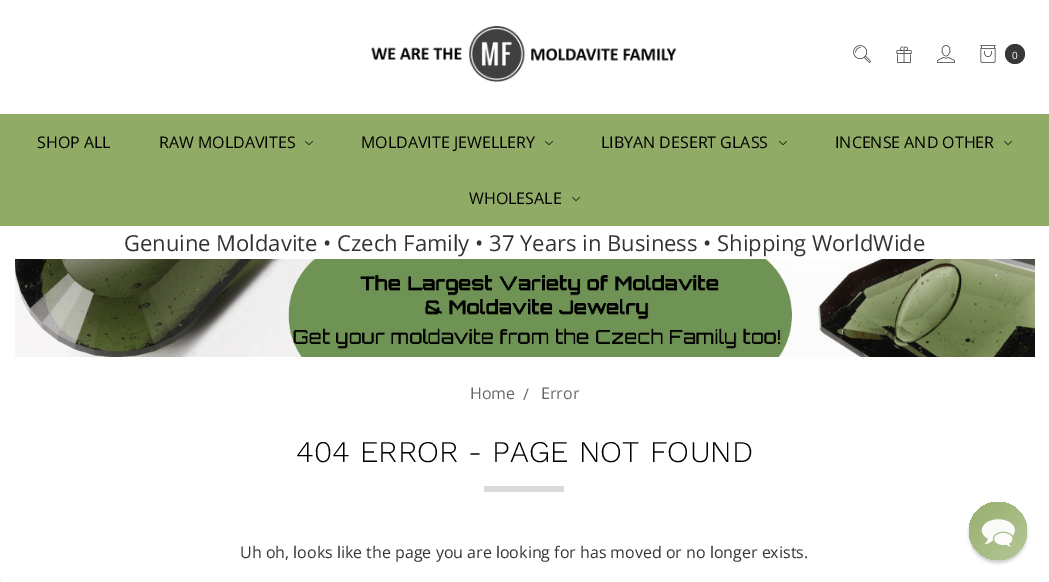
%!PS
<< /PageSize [1049 582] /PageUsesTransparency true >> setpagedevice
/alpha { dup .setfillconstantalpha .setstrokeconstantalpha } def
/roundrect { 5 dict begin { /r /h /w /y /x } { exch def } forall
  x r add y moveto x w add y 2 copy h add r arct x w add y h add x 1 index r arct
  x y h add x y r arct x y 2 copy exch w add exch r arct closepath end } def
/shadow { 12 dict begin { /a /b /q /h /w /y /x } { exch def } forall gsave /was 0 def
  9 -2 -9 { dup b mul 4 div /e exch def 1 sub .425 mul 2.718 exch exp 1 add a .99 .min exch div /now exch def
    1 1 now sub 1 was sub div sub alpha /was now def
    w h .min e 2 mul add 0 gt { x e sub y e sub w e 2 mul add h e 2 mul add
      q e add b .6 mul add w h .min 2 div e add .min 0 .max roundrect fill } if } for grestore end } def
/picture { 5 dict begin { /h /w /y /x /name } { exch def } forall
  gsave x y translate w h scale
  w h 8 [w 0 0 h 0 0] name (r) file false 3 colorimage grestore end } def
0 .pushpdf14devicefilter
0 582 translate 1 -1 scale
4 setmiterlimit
1 setgray
0 0 1049 582 rectfill
(img1.rgb) 371 26 306 56 picture
(img2.rgb) 853 45 18 18 picture
(img3.rgb) 896 46 16 17 picture
(img4.rgb) 937 45 18 18 picture
(img5.rgb) 980 45 16 18 picture
0.216 setgray
newpath 1015 54 10 0 360 arc closepath fill
/OpenSans-Regular [10 0 0 -10 0 0] selectfont
1 setgray
1012 59 moveto (0) show
0.565 0.671 0.396 setrgbcolor
0 114 1049 112 rectfill
/OpenSans-Regular [16 0 0 -16 0 0] selectfont
0 setgray
37 148 moveto (SHOP ALL) show
159 148 moveto (RAW MOLDAVITES) show
(img6.rgb) 305 141 8 4 picture
361 148 moveto (MOLDAVITE JEWELLERY) show
(img6.rgb) 545 141 8 4 picture
601 148 moveto (LIBYAN DESERT GLASS) show
(img6.rgb) 779 141 8 4 picture
835 148 moveto (INCENSE AND OTHER) show
(img6.rgb) 1004 141 8 4 picture
469 204 moveto (WHOLESALE) show
(img6.rgb) 572 197 8 4 picture
/OpenSans-Regular [22 0 0 -22 0 0] selectfont
0.2 setgray
124 251 moveto (Genuine Moldavite • Czech Family • 37 Years in Business • Shipping WorldWide) show
(img7.rgb) 15 259 1020 98 picture
/OpenSans-Regular [16 0 0 -16 0 0] selectfont
0.4 setgray
470 399 moveto (Home) show
523 400 moveto (/) show
541 399 moveto (Error) show
/WorkSans-Light [30 0 0 -30 0 0] selectfont
0 setgray
296 462 moveto 0.25 0 (404 ERROR - PAGE NOT FOUND) ashow
0.855 setgray
484 486 80 6 rectfill
/OpenSans-Regular [16 0 0 -16 0 0] selectfont
0.2 setgray
240 558 moveto (Uh oh, looks like the page you are looking for has moved or no longer exists.) show
0.051 setgray
969 505 58 58 29 1.5 0.2 shadow
gsave newpath 998 531 29 0 360 arc closepath clip newpath
<< /ShadingType 2 /ColorSpace /DeviceRGB /Coords [969 502 1027 560] /Extend [true true] /Function << /FunctionType 2 /Domain [0 1] /C0 [0.588 0.686 0.427] /C1 [0.71 0.78 0.596] /N 1 >> >> shfill grestore
(img8.rgb) 981 519 34 28 picture
0.961 setgray
0 580 2 2 rectfill
.poppdf14devicefilter showpage
